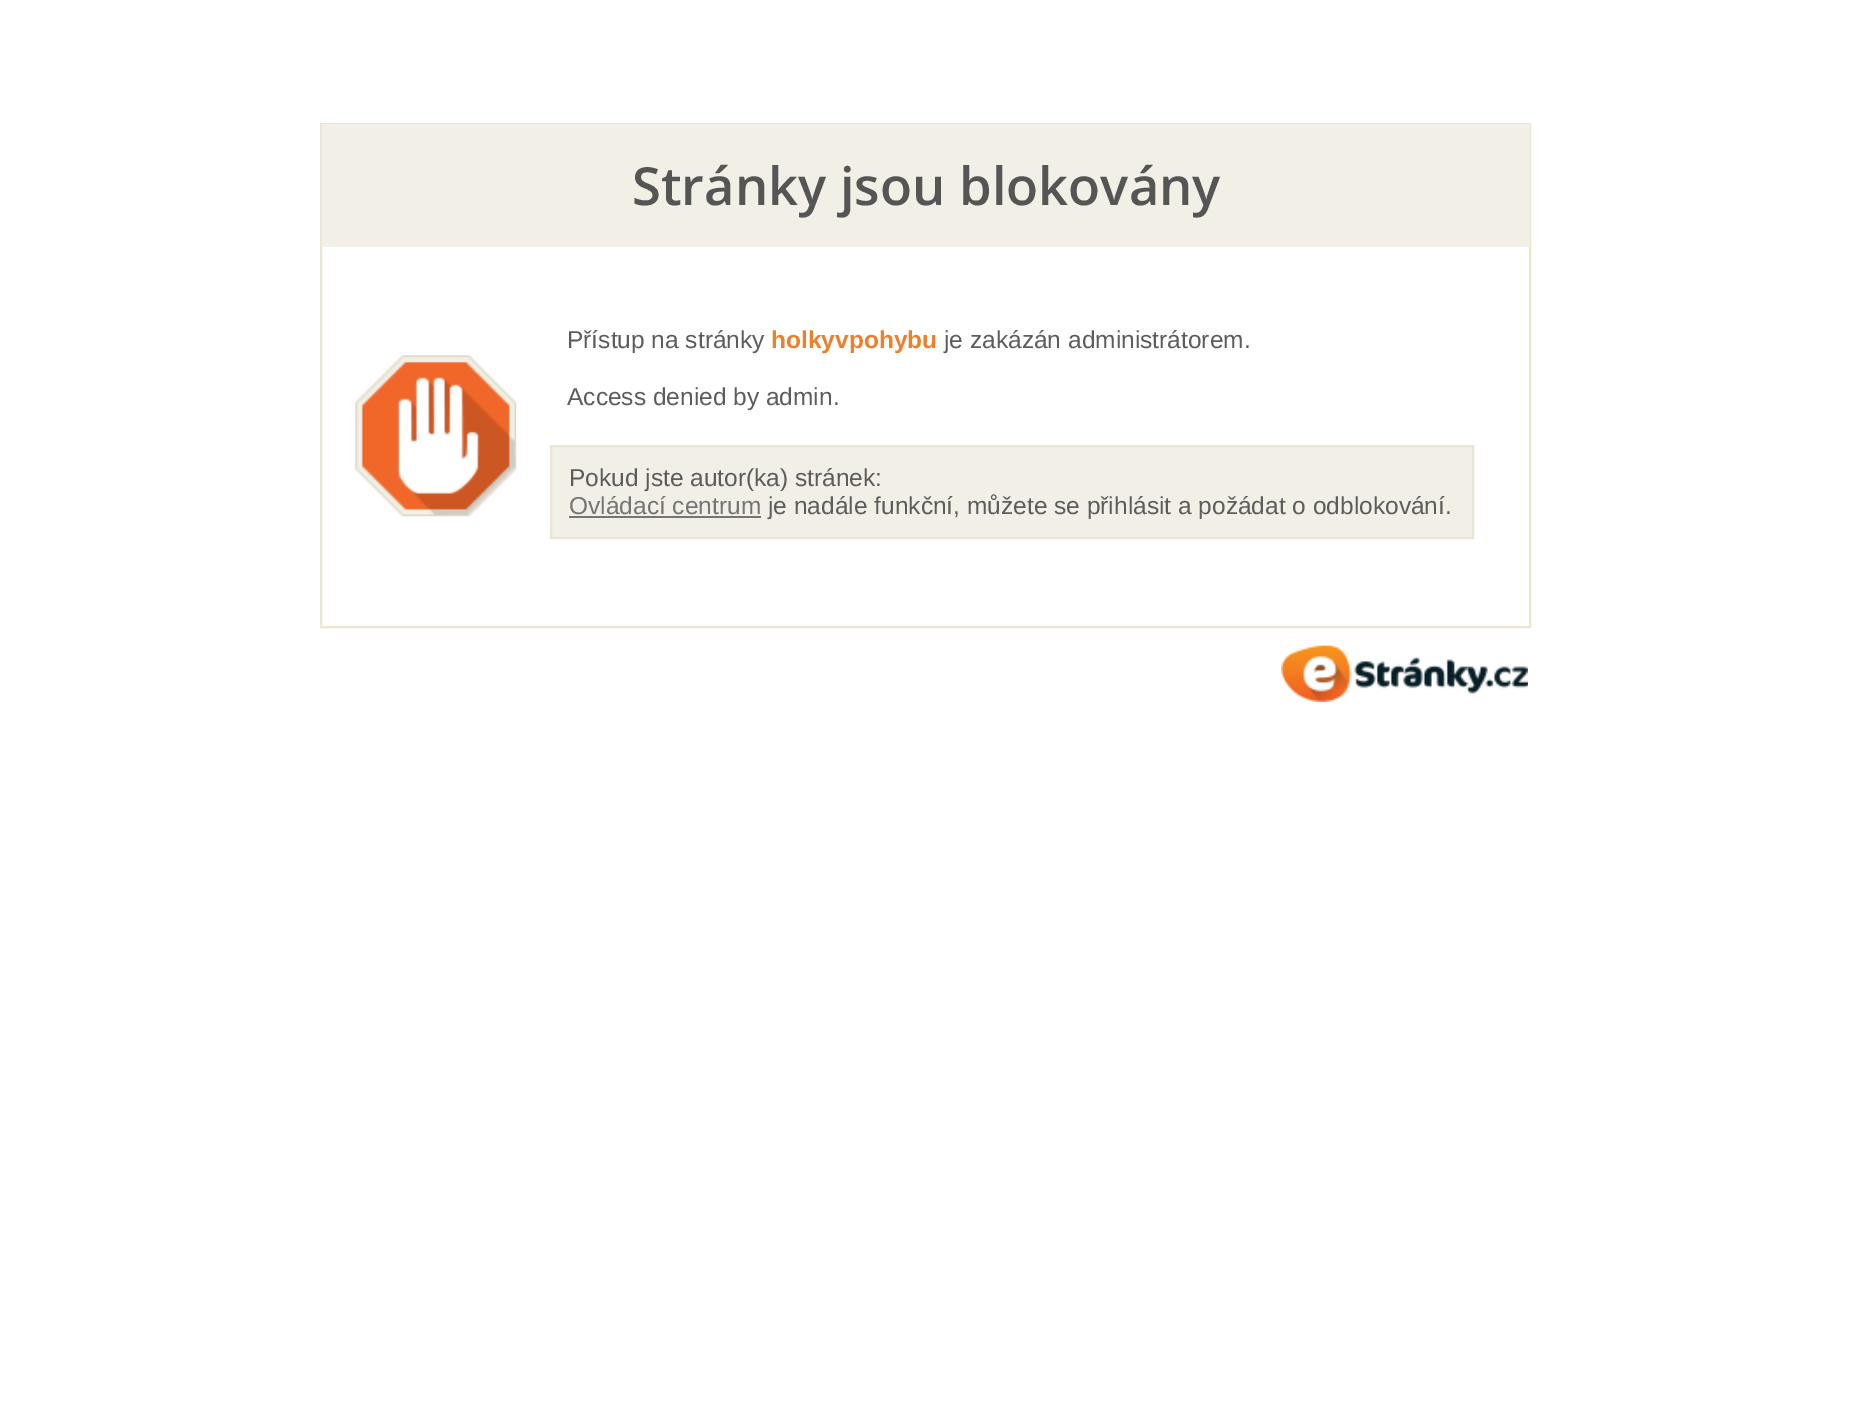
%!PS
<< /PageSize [1850 1409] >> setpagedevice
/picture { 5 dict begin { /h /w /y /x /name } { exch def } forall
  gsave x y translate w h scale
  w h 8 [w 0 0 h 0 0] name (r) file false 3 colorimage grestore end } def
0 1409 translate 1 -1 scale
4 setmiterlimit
1 setgray
0 0 1850 1409 rectfill
0.922 0.898 0.827 setrgbcolor
2 setlinewidth
321 124 1209 503 rectstroke
0.949 0.937 0.902 setrgbcolor
322 124 1208 123 rectfill
/OpenSans-SemiBold [52.5 0 0 -52.5 0 0] selectfont
0.333 setgray
632 205 moveto (Stránky jsou blokovány) show
(img1.rgb) 355 355 162 162 picture
/LiberationSans-Regular [24.5 0 0 -24.5 0 0] selectfont
0.361 setgray
567 348 moveto (Přístup na stránky) show
/LiberationSans-Bold [24.5 0 0 -24.5 0 0] selectfont
0.949 0.494 0.157 setrgbcolor
771 348 moveto (holkyvpohybu) show
/LiberationSans-Regular [24.5 0 0 -24.5 0 0] selectfont
0.361 setgray
944 348 moveto (je zakázán administrátorem.) show
567 405 moveto (Access denied by admin.) show
0.949 0.937 0.902 setrgbcolor
newpath 551 446 moveto 1473 446 lineto 1473 538 lineto 551 538 lineto closepath gsave fill grestore
0.922 0.898 0.827 setrgbcolor
stroke
0.361 setgray
569 486 moveto (Pokud jste autor\(ka\) stránek:) show
0.459 setgray
569 514 moveto (Ovládací centrum) show
569 516 192 2 rectfill
0.361 setgray
768 514 moveto (je nadále funkční, můžete se přihlásit a požádat o odblokování.) show
(img2.rgb) 1281 645 247 57 picture
(img3.rgb) 1312 645 216 57 picture
showpage
